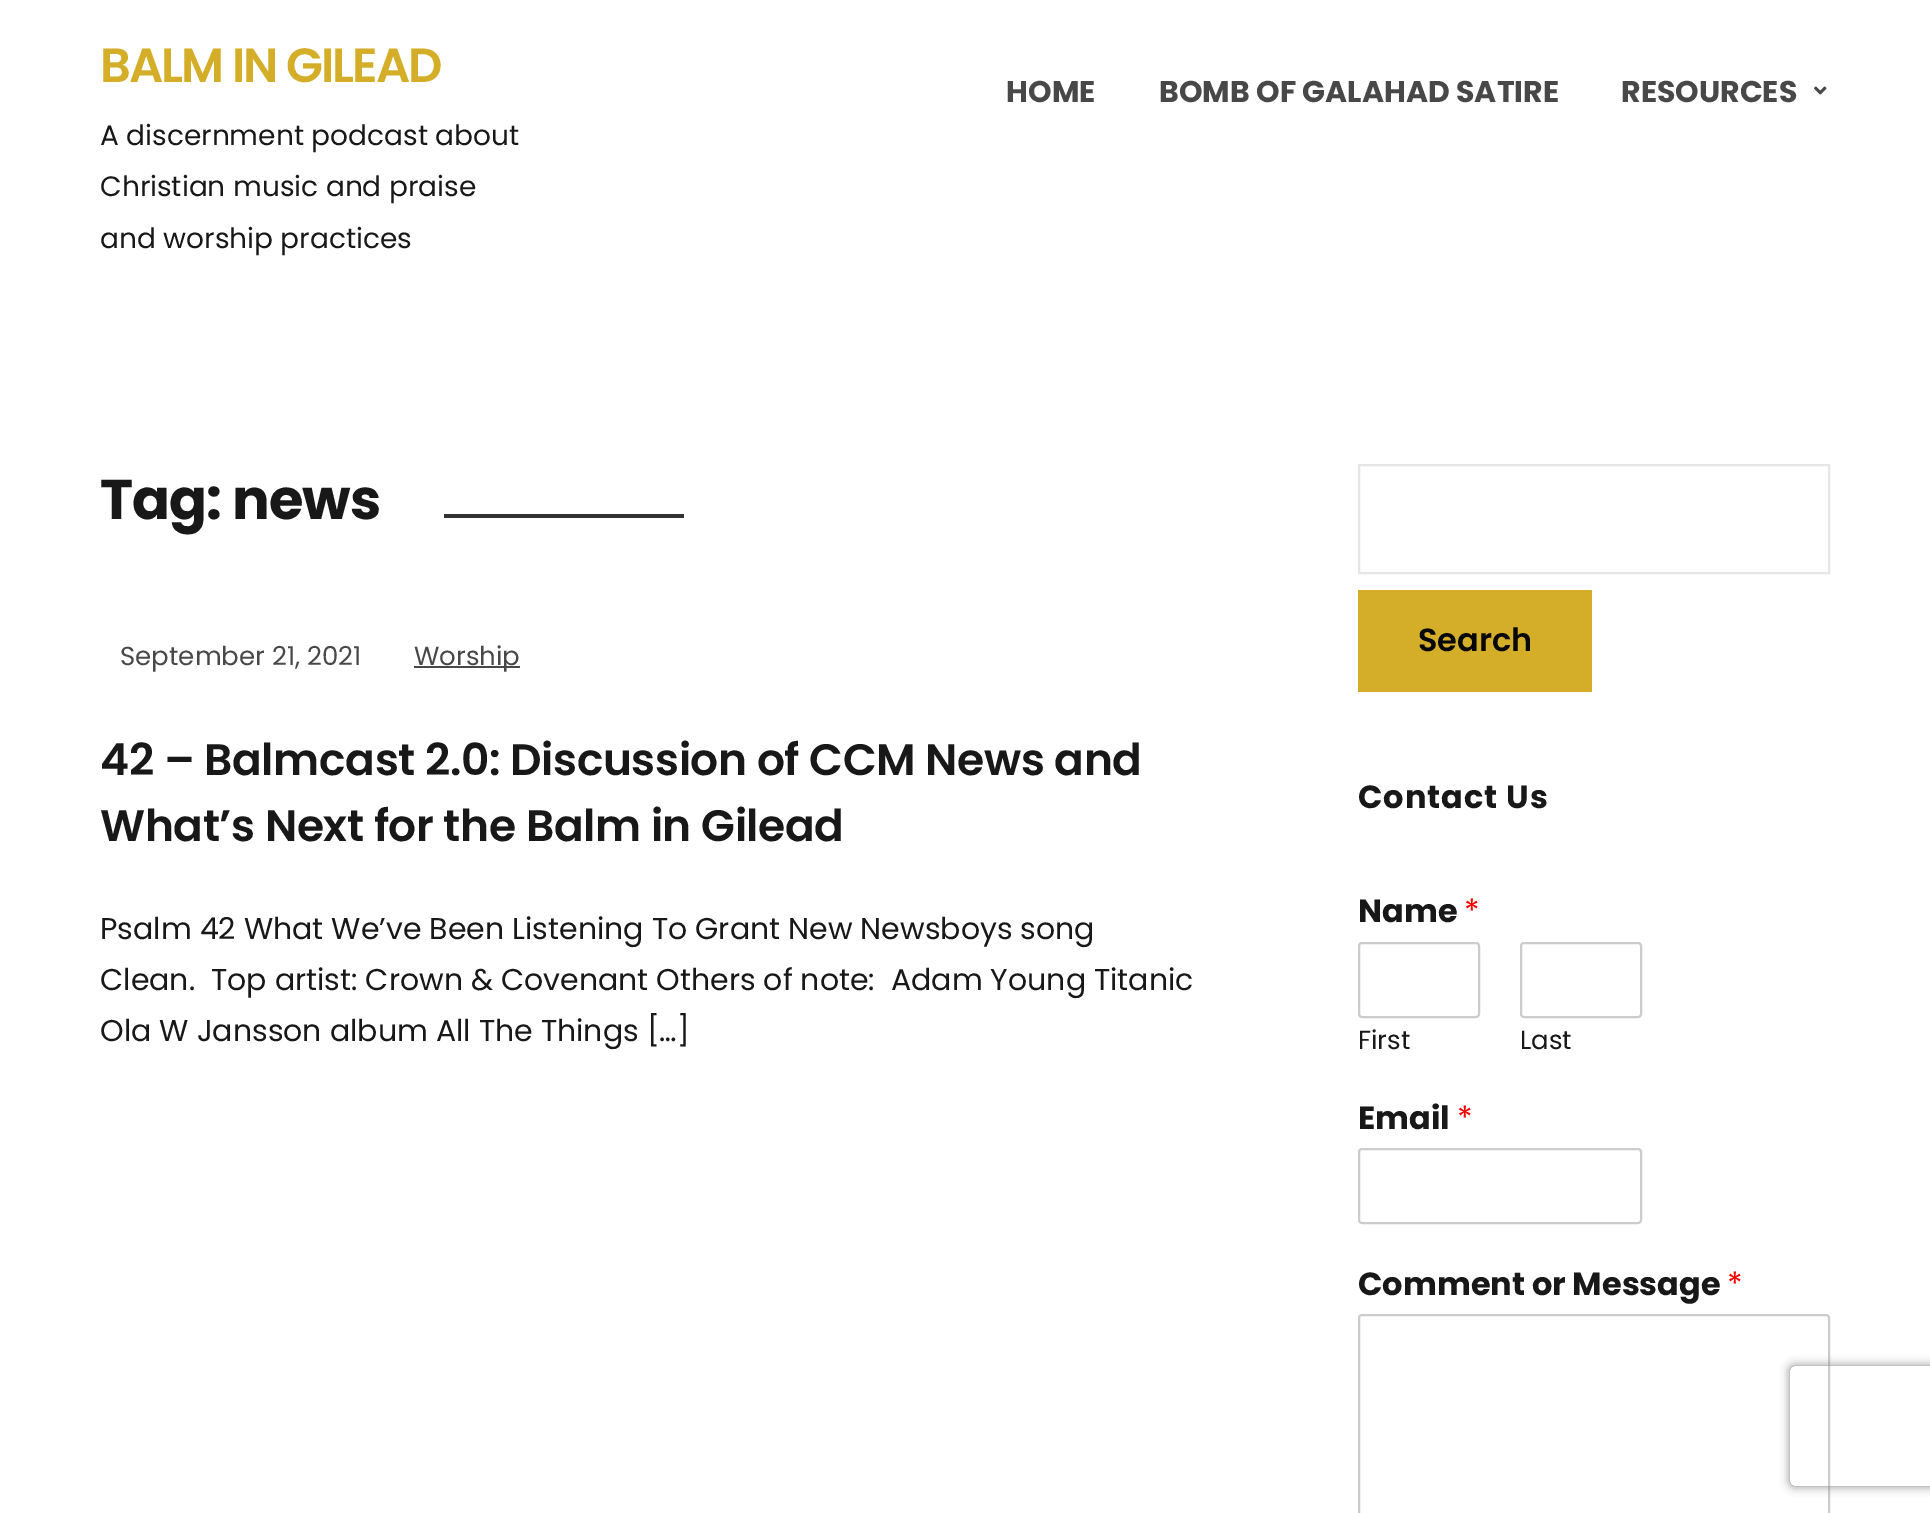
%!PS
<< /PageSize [1930 1513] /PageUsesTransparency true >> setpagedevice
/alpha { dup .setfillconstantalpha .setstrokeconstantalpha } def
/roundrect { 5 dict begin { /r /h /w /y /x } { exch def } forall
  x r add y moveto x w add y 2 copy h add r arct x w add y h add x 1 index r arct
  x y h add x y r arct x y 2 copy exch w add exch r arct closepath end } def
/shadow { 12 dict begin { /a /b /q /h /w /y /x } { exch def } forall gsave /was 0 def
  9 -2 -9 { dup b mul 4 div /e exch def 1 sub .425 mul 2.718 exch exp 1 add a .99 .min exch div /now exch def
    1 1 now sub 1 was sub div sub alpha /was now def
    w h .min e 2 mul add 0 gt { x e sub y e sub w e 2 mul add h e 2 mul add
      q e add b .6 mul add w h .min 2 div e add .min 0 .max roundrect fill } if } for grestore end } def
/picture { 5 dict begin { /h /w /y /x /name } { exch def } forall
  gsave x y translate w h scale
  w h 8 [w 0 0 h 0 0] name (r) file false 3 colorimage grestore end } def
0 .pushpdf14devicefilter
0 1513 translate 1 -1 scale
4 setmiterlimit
1 setgray
0 0 1930 1513 rectfill
/Poppins-SemiBold [48 0 0 -48 0 0] selectfont
0.831 0.682 0.161 setrgbcolor
100 82 moveto -2 0 (BALM IN GILEAD) ashow
/Poppins-Regular [28 0 0 -28 0 0] selectfont
0.094 setgray
100 145 moveto (A discernment podcast about) show
100 196 moveto (Christian music and praise) show
100 248 moveto (and worship practices) show
/Poppins-Bold [30 0 0 -30 0 0] selectfont
0.282 setgray
1006 102 moveto (HOME) show
1159 102 moveto (BOMB OF GALAHAD SATIRE) show
1621 102 moveto (RESOURCES) show
(img1.rgb) 1814 86 13 9 picture
/Poppins-Bold [56 0 0 -56 0 0] selectfont
0.094 setgray
100 519 moveto -1 0 (Tag: news) ashow
0.2 setgray
444 514 240 4 rectfill
/Poppins-Regular [26 0 0 -26 0 0] selectfont
0.282 setgray
120 665 moveto (September 21, 2021) show
414 666 106 2 rectfill
414 665 moveto (Worship) show
/Poppins-SemiBold [44 0 0 -44 0 0] selectfont
0.094 setgray
100 775 moveto -0.4 0 (42 – Balmcast 2.0: Discussion of CCM News and) ashow
100 841 moveto -0.4 0 (What’s Next for the Balm in Gilead) ashow
/Poppins-Regular [30 0 0 -30 0 0] selectfont
100 939 moveto (Psalm 42 What We’ve Been Listening To Grant New Newsboys song) show
100 990 moveto (Clean.  Top artist: Crown & Covenant Others of note:  Adam Young Titanic) show
100 1041 moveto (Ola W Jansson album All The Things […]) show
0.902 setgray
2 setlinewidth
1359 465 470 108 rectstroke
0.831 0.682 0.161 setrgbcolor
1358 590 234 102 rectfill
/Poppins-SemiBold [32 0 0 -32 0 0] selectfont
0.031 setgray
1418 651 moveto (Search) show
/Poppins-Bold [32 0 0 -32 0 0] selectfont
0.094 setgray
1358 808 moveto 1 0 (Contact Us) ashow
1358 922 moveto (Name) show
/Poppins-Regular [32 0 0 -32 0 0] selectfont
1 0 0 setrgbcolor
1464 922 moveto (*) show
0.8 setgray
1359 943 120 74 3 roundrect stroke
/Poppins-Regular [26 0 0 -26 0 0] selectfont
0.094 setgray
1358 1049 moveto (First) show
0.8 setgray
1521 943 120 74 3 roundrect stroke
0.094 setgray
1520 1049 moveto (Last) show
/Poppins-Bold [32 0 0 -32 0 0] selectfont
1358 1129 moveto (Email) show
/Poppins-Regular [32 0 0 -32 0 0] selectfont
1 0 0 setrgbcolor
1457 1129 moveto (*) show
0.8 setgray
1359 1149 282 74 3 roundrect stroke
/Poppins-Bold [32 0 0 -32 0 0] selectfont
0.094 setgray
1358 1295 moveto (Comment or Message) show
/Poppins-Regular [32 0 0 -32 0 0] selectfont
1 0 0 setrgbcolor
1727 1295 moveto (*) show
0.8 setgray
1359 1315 470 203 3 roundrect stroke
gsave
newpath 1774 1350 moveto 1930 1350 lineto 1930 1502 lineto 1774 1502 lineto closepath 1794 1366 moveto 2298 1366 lineto 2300 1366 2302 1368 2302 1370 curveto 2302 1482 lineto 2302 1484 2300 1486 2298 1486 curveto 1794 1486 lineto 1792 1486 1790 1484 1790 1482 curveto 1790 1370 lineto 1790 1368 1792 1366 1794 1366 curveto closepath eoclip newpath
0.502 setgray
1790 1366 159 120 4 5 1 shadow
grestore
.poppdf14devicefilter showpage
